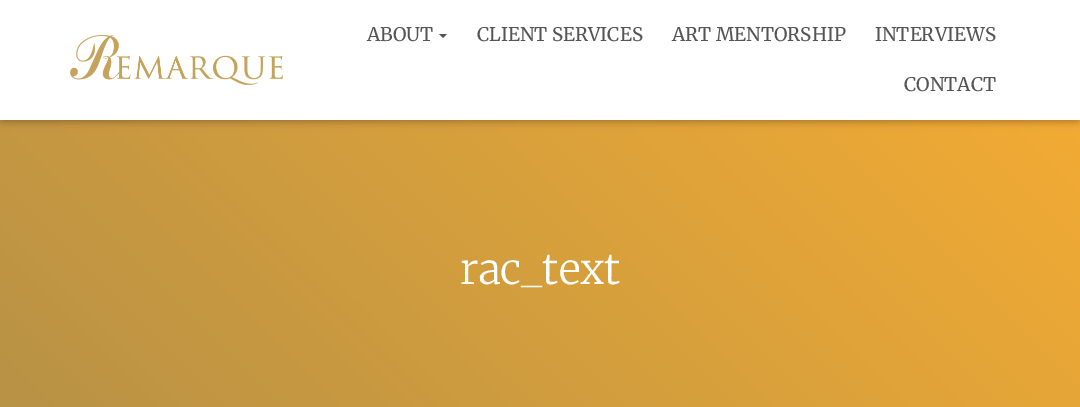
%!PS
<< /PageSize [1080 407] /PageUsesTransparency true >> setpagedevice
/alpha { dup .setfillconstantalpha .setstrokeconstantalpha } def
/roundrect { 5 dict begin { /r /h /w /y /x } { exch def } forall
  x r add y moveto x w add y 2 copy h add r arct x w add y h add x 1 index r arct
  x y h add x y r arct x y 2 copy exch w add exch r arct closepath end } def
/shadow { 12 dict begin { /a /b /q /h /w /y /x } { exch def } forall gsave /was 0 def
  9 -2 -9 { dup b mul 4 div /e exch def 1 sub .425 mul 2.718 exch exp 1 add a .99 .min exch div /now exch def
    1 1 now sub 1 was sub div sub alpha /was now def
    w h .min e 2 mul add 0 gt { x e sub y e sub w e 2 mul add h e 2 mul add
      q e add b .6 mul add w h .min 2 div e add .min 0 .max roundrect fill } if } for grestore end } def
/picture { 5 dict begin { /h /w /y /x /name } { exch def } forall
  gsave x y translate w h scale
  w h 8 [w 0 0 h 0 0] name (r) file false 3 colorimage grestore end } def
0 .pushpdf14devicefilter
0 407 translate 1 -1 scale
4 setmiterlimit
1 setgray
0 0 1080 407 rectfill
gsave newpath 0 120 moveto 1080 120 lineto 1080 407 lineto 0 407 lineto closepath clip newpath
<< /ShadingType 2 /ColorSpace /DeviceRGB /Coords [150 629 930 -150] /Extend [true true] /Function << /FunctionType 2 /Domain [0 1] /C0 [0.71 0.569 0.278] /C1 [0.969 0.678 0.196] /N 1 >> >> shfill grestore
0 setgray
2 6 1076 116 0 2.5 0.1 shadow
0 1 1080 120 0 5 0.12 shadow
6 7 1068 108 0 5 0.42 shadow
1 setgray
0 0 1080 120 rectfill
(img1.rgb) 70 35 213 50 picture
/Merriweather-Regular [18.75 0 0 -18.75 0 0] selectfont
0.333 setgray
367 41 moveto (ABOUT) show
newpath 439 34 moveto 447 34 lineto 443 38 lineto closepath fill
477 41 moveto (CLIENT SERVICES) show
672 41 moveto (ART MENTORSHIP) show
875 41 moveto (INTERVIEWS) show
904 91 moveto (CONTACT) show
/Merriweather-Light [42 0 0 -42 0 0] selectfont
1 setgray
460 284 moveto (rac_text) show
.poppdf14devicefilter showpage
